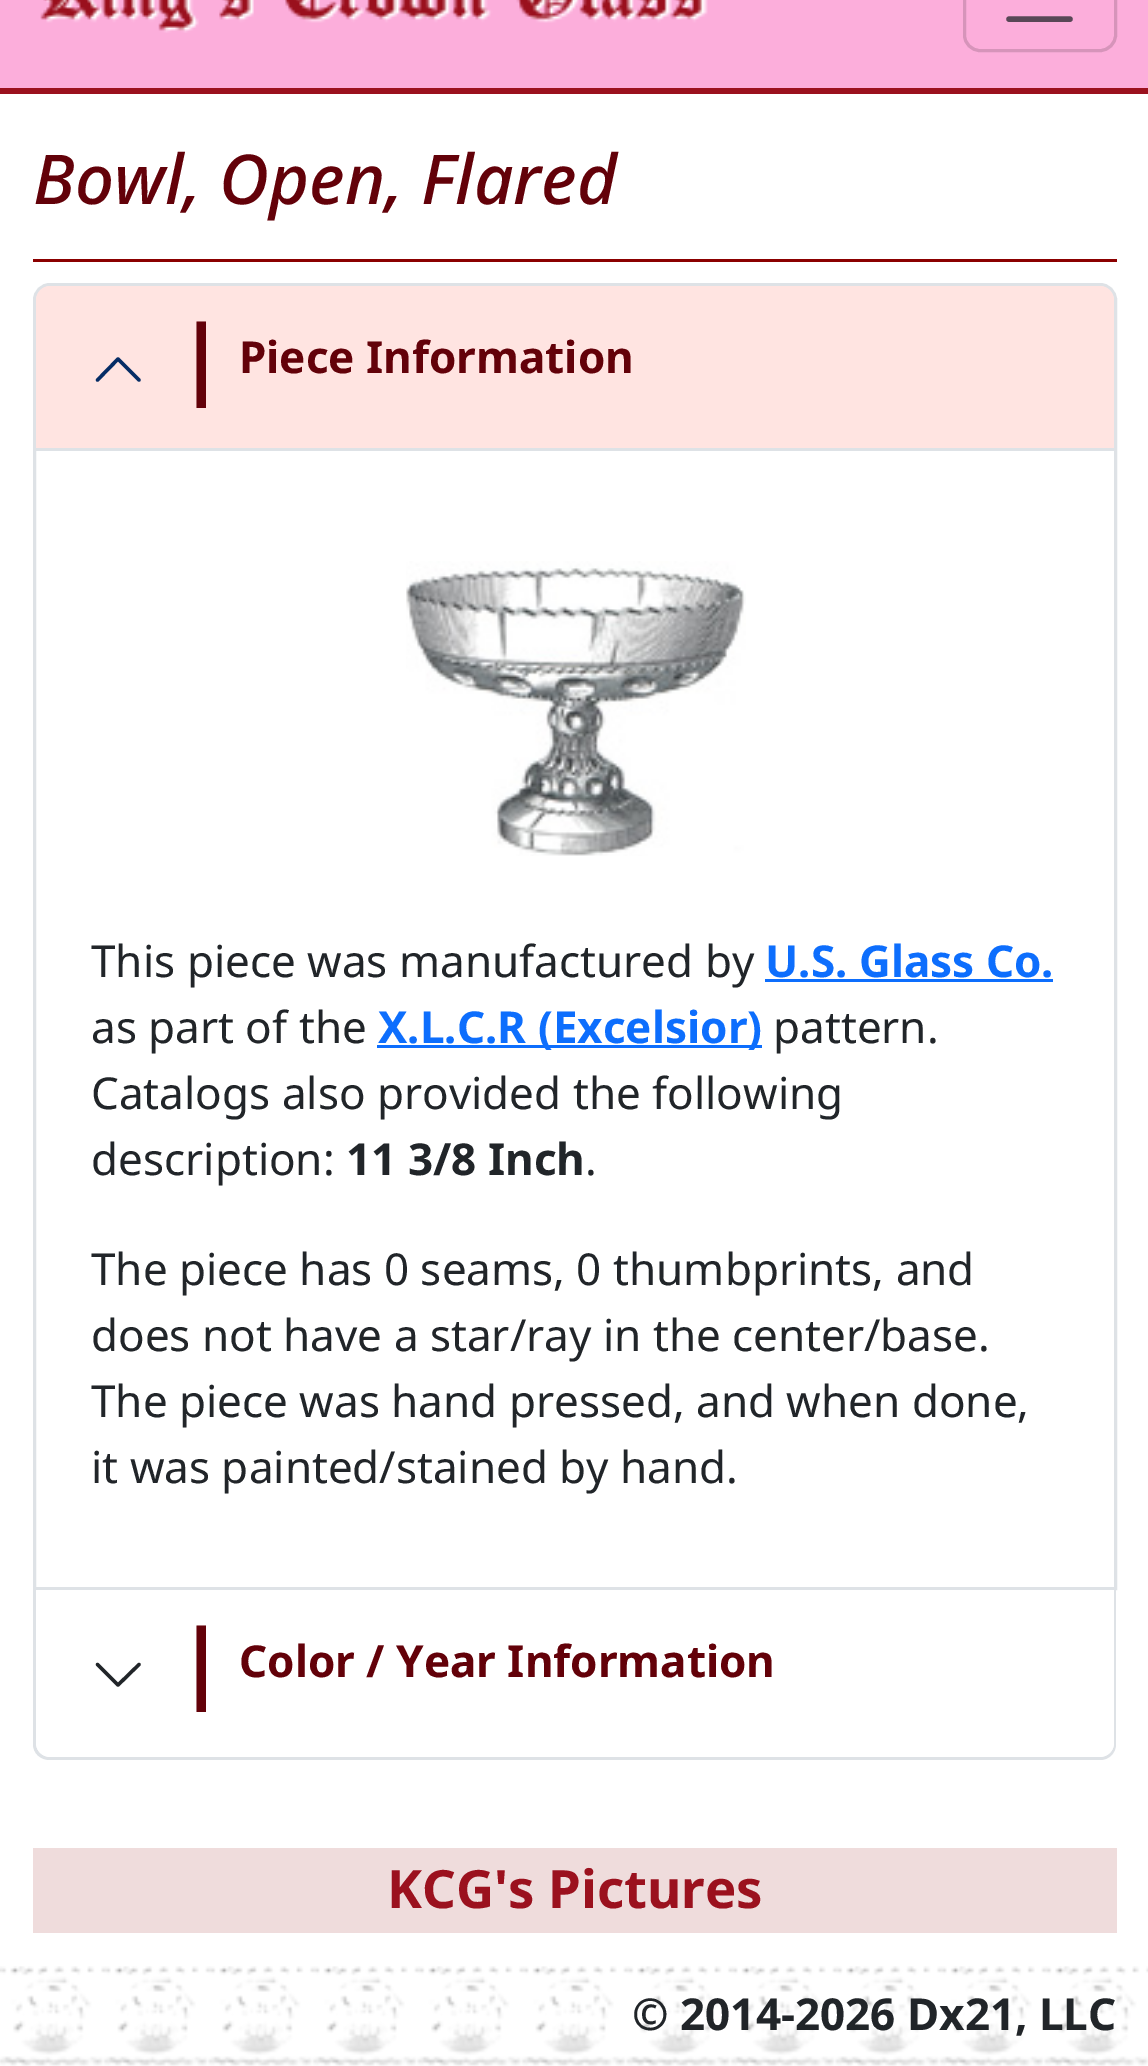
%!PS
<< /PageSize [1148 2066] >> setpagedevice
/roundrect { 5 dict begin { /r /h /w /y /x } { exch def } forall
  x r add y moveto x w add y 2 copy h add r arct x w add y h add x 1 index r arct
  x y h add x y r arct x y 2 copy exch w add exch r arct closepath end } def
/picture { 5 dict begin { /h /w /y /x /name } { exch def } forall
  gsave x y translate w h scale
  w h 8 [w 0 0 h 0 0] name (r) file false 3 colorimage grestore end } def
0 2066 translate 1 -1 scale
4 setmiterlimit
1 setgray
0 0 1148 2066 rectfill
0.988 0.682 0.859 setrgbcolor
0 0 1148 88 rectfill
0.608 0.067 0.118 setrgbcolor
0 88 1148 6 rectfill
(img1.rgb) 40 0 668 33 picture
0.839 0.58 0.729 setrgbcolor
3 setlinewidth
964.5 -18.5 151 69 15.5 roundrect stroke
0.345 0.278 0.337 setrgbcolor
5.5 setlinewidth
1 setlinecap
newpath 1009 -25 moveto 1070 -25 lineto 1009 -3 moveto 1070 -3 lineto 1009 19 moveto 1070 19 lineto stroke
0.545 0 0 setrgbcolor
33 259 1084 3 rectfill
/NotoSans-MediumItalic [68.75 0 0 -68.75 0 0] selectfont
0.388 0.004 0.035 setrgbcolor
33 204 moveto (Bowl, Open, Flared) show
0.871 0.886 0.902 setrgbcolor
3 setlinewidth
0 setlinecap
newpath 50 284.5 moveto 1100 284.5 lineto 1108.5 284.5 1115.5 291.5 1115.5 300 curveto 1115.5 1588.5 lineto 34.5 1588.5 lineto 34.5 300 lineto 34.5 291.5 41.5 284.5 50 284.5 curveto closepath stroke
1 0.894 0.882 setrgbcolor
newpath 50 286 moveto 1100 286 lineto 1107.5 286 1114 292.5 1114 300 curveto 1114 451 lineto 36 451 lineto 36 300 lineto 36 292.5 42.5 286 50 286 curveto closepath fill
0.871 0.886 0.902 setrgbcolor
36 448 1078 3 rectfill
0.02 0.173 0.396 setrgbcolor
3.4 setlinewidth
1 setlinecap
1 setlinejoin
newpath 139 380 moveto 118 359 lineto 97.5 380 lineto stroke
/NotoSans-Bold [88 0 0 -88 0 0] selectfont
0.388 0.004 0.035 setrgbcolor
177 388 moveto (|) show
/NotoSans-Bold [44 0 0 -44 0 0] selectfont
239 373 moveto (Piece Information) show
(img2.rgb) 406 561 340 295 picture
/NotoSans-Regular [44 0 0 -44 0 0] selectfont
0.129 0.145 0.161 setrgbcolor
91 977 moveto (This piece was manufactured by) show
/NotoSans-Bold [44 0 0 -44 0 0] selectfont
0.051 0.431 0.992 setrgbcolor
765 977 moveto (U.S. Glass Co.) show
765 979 288 3 rectfill
/NotoSans-Regular [44 0 0 -44 0 0] selectfont
0.129 0.145 0.161 setrgbcolor
91 1043 moveto (as part of the) show
0.051 0.431 0.992 setrgbcolor
377 1045 385 3 rectfill
/NotoSans-Bold [44 0 0 -44 0 0] selectfont
378 1043 moveto (X.L.C.R \(Excelsior\)) show
/NotoSans-Regular [44 0 0 -44 0 0] selectfont
0.129 0.145 0.161 setrgbcolor
773 1043 moveto (pattern.) show
91 1109 moveto (Catalogs also provided the following) show
91 1175 moveto (description:) show
/NotoSans-Bold [44 0 0 -44 0 0] selectfont
346 1175 moveto (11 3/8 Inch) show
/NotoSans-Regular [44 0 0 -44 0 0] selectfont
585 1175 moveto (.) show
91 1285 moveto (The piece has 0 seams, 0 thumbprints, and) show
91 1351 moveto (does not have a star/ray in the center/base.) show
91 1417 moveto (The piece was hand pressed, and when done,) show
91 1483 moveto (it was painted/stained by hand.) show
0.871 0.886 0.902 setrgbcolor
newpath 33 1590 moveto 1116 1590 lineto 1116 1744 lineto 1116 1753 1109 1760 1100 1760 curveto 50 1760 lineto 40 1760 33 1753 33 1744 curveto closepath 36 1590 moveto 1114 1590 lineto 1114 1744 lineto 1114 1751 1108 1757 1100 1757 curveto 50 1757 lineto 42 1757 36 1751 36 1744 curveto closepath eofill
1 setgray
newpath 36 1590 moveto 1114 1590 lineto 1114 1743 lineto 1114 1750.5 1107.5 1757 1100 1757 curveto 50 1757 lineto 42.5 1757 36 1750.5 36 1743 curveto closepath fill
0.129 0.145 0.161 setrgbcolor
newpath 97.5 1664.5 moveto 118 1685 lineto 139 1664.5 lineto stroke
/NotoSans-Bold [88 0 0 -88 0 0] selectfont
0.388 0.004 0.035 setrgbcolor
177 1692 moveto (|) show
/NotoSans-Bold [44 0 0 -44 0 0] selectfont
239 1677 moveto (Color / Year Information) show
0.937 0.863 0.863 setrgbcolor
33 1848 1084 85 rectfill
/NotoSans-Bold [52.75 0 0 -52.75 0 0] selectfont
0.608 0.067 0.118 setrgbcolor
387 1908 moveto (KCG's Pictures) show
(img3.rgb) 0 1966 1148 100 picture
/NotoSans-Bold [44 0 0 -44 0 0] selectfont
0.129 0.145 0.161 setrgbcolor
632 2030 moveto (© 2014-2026 Dx21, LLC) show
showpage
